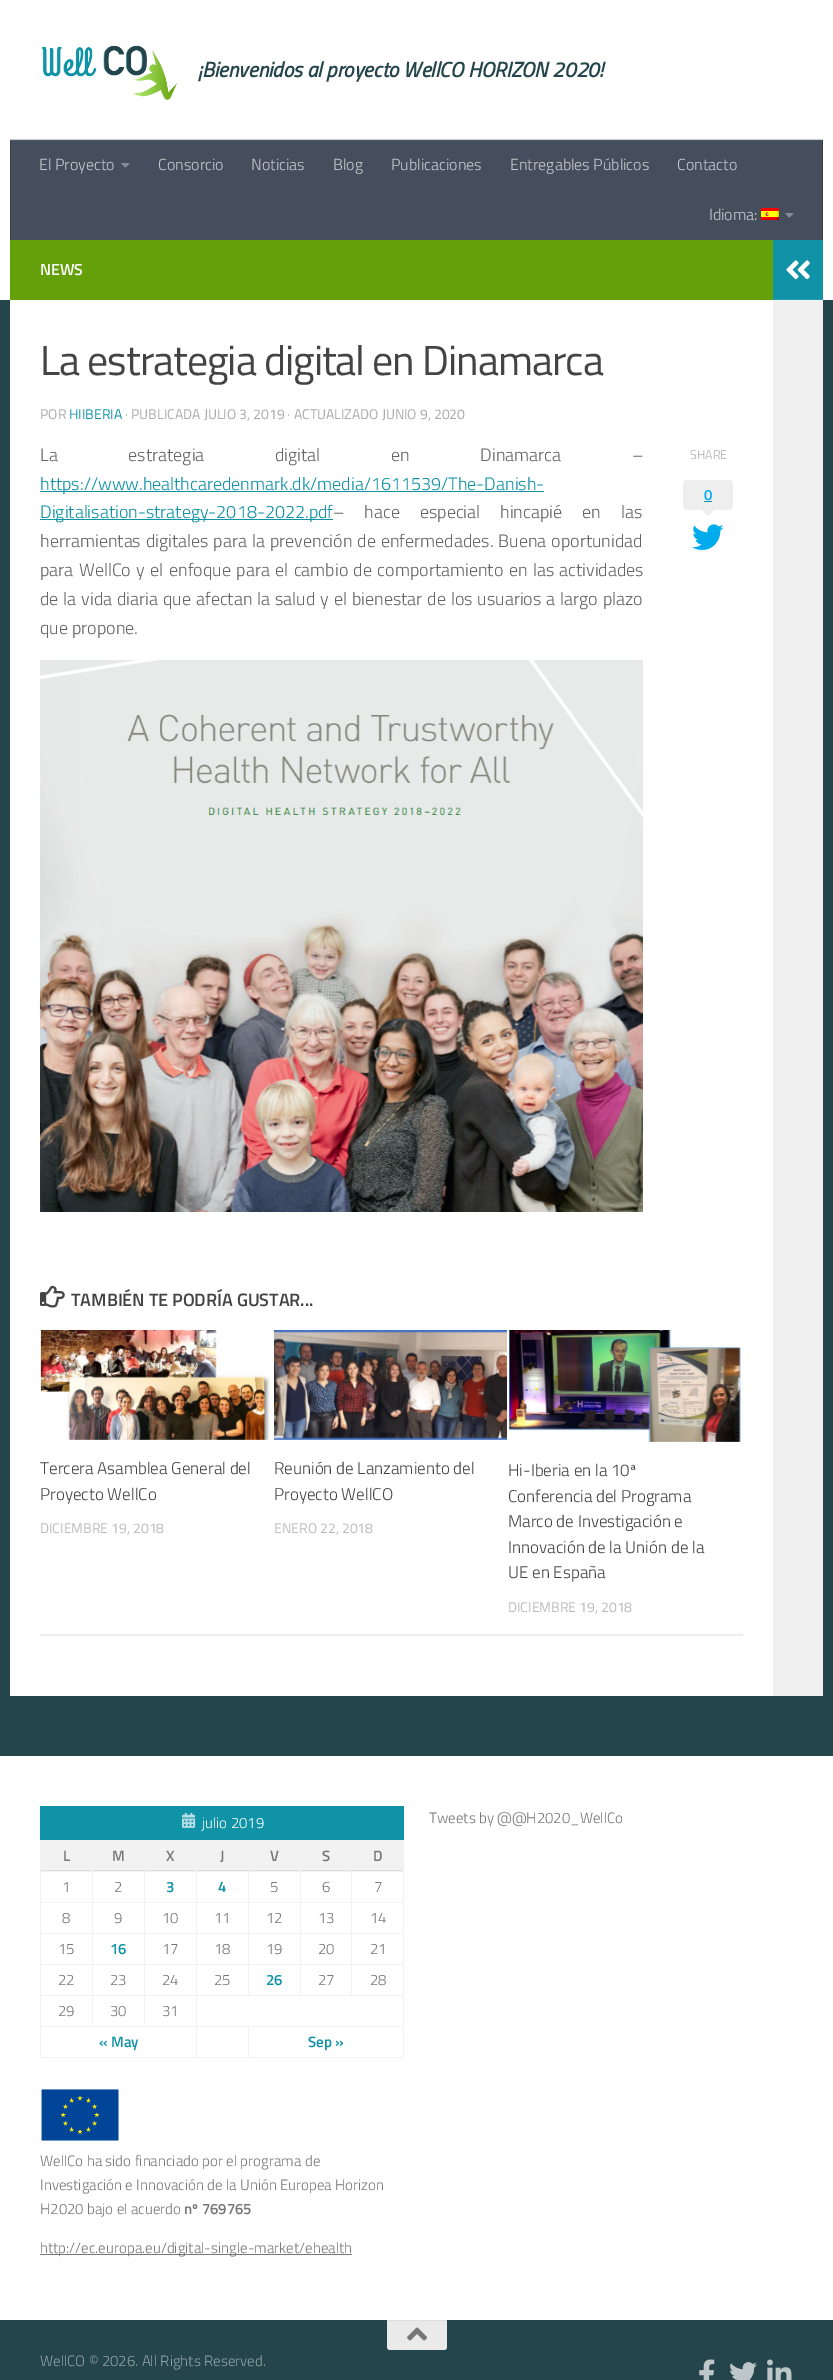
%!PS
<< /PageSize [833 2380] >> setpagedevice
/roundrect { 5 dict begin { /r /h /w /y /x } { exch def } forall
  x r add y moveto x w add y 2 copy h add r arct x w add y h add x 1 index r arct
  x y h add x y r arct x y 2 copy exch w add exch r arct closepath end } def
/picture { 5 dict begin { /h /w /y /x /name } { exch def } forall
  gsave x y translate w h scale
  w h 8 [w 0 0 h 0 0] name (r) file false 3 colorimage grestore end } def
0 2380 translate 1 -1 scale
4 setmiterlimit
0.141 0.271 0.298 setrgbcolor
0 0 833 2380 rectfill
1 setgray
0 0 833 300 rectfill
(img1.rgb) 41 45 136 55 picture
/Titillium-BoldItalic [21 0 0 -21 0 0] selectfont
0.141 0.271 0.298 setrgbcolor
198 77 moveto (¡Bienvenidos al proyecto WellCO HORIZON 2020!) show
0.8 setgray
10 139 813 1 rectfill
0.271 0.306 0.361 setrgbcolor
11 141 811 99 rectfill
0.306 0.341 0.392 setrgbcolor
10 140 813 1 rectfill
0.216 0.243 0.29 setrgbcolor
822 140 1 100 rectfill
0.255 0.282 0.325 setrgbcolor
822 140 1 1 rectfill
0.216 0.243 0.29 setrgbcolor
10 140 1 100 rectfill
0.255 0.282 0.325 setrgbcolor
10 140 1 1 rectfill
/Titillium-Light [16 0 0 -16 0 0] selectfont
0.78 0.792 0.808 setrgbcolor
39 170 moveto (El Proyecto) show
(img2.rgb) 121 163 9 5 picture
158 170 moveto (Consorcio) show
251 170 moveto (Noticias) show
333 170 moveto (Blog) show
391 170 moveto (Publicaciones) show
510 170 moveto (Entregables Públicos) show
677 170 moveto (Contacto) show
709 220 moveto (Idioma:) show
(img3.rgb) 761 208 18 12 picture
(img2.rgb) 785 213 9 5 picture
1 setgray
10 300 763 1396 rectfill
0.388 0.627 0.039 setrgbcolor
10 240 763 60 rectfill
/Titillium-SemiBold [16 0 0 -16 0 0] selectfont
1 setgray
40 275 moveto (NEWS) show
/Titillium-Regular [41.9 0 0 -41.9 0 0] selectfont
0.267 setgray
40 375 moveto -1 0 (La estrategia digital en Dinamarca) ashow
/Titillium-Regular [14 0 0 -14 0 0] selectfont
0.667 setgray
40 419 moveto (POR) show
0.063 0.576 0.655 setrgbcolor
69 419 moveto (HIIBERIA) show
0.667 setgray
125 419 moveto (· PUBLICADA JULIO 3, 2019 · ACTUALIZADO JUNIO 9, 2020) show
/Titillium-Light [18 0 0 -18 0 0] selectfont
0.4 setgray
40 461 moveto 66.75 0 32 (La estrategia digital en Dinamarca –) widthshow
0.063 0.576 0.655 setrgbcolor
40 491 504 1 rectfill
40 490 moveto (https://www.healthcaredenmark.dk/media/1611539/The-Danish-) show
40 519 293 1 rectfill
40 518 moveto (Digitalisation-strategy-2018-2022.pdf) show
0.4 setgray
333 518 moveto 16 0 32 (– hace especial hincapié en las) widthshow
40 547 moveto 1 0 32 (herramientas digitales para la prevención de enfermedades. Buena oportunidad) widthshow
40 576 moveto 1.5 0 32 (para WellCo y el enfoque para el cambio de comportamiento en las actividades) widthshow
40 605 moveto 1 0 32 (de la vida diaria que afectan la salud y el bienestar de los usuarios a largo plazo) widthshow
40 634 moveto (que propone.) show
(img4.rgb) 40 660 603 552 picture
/Titillium-Light [12.5 0 0 -12.5 0 0] selectfont
0.667 setgray
690 459 moveto (SHARE) show
0.933 setgray
683 480 50 30 4 roundrect fill
/Titillium-SemiBold [15 0 0 -15 0 0] selectfont
0 0.675 0.933 setrgbcolor
704 500 moveto (0) show
0.063 0.576 0.655 setrgbcolor
704 501 8 1 rectfill
0.933 setgray
newpath 702 510 moveto 714 510 lineto 708 516 lineto closepath fill
(img5.rgb) 692 524 32 26 picture
(img6.rgb) 40 1285 25 23 picture
/Titillium-SemiBold [18 0 0 -18 0 0] selectfont
0.267 setgray
71 1306 moveto (TAMBIÉN TE PODRÍA GUSTAR...) show
0.933 setgray
40 1634 703 2 rectfill
(img7.rgb) 40 1330 230 110 picture
/Titillium-Light [17 0 0 -17 0 0] selectfont
0.267 setgray
40 1474 moveto (Tercera Asamblea General del) show
40 1500 moveto (Proyecto WellCo) show
/Titillium-Regular [14 0 0 -14 0 0] selectfont
0.733 setgray
40 1533 moveto (DICIEMBRE 19, 2018) show
(img8.rgb) 274 1330 233 110 picture
/Titillium-Light [17 0 0 -17 0 0] selectfont
0.267 setgray
274 1474 moveto (Reunión de Lanzamiento del) show
274 1500 moveto (Proyecto WellCO) show
/Titillium-Regular [14 0 0 -14 0 0] selectfont
0.733 setgray
274 1533 moveto (ENERO 22, 2018) show
(img9.rgb) 509 1330 232 112 picture
/Titillium-Light [17 0 0 -17 0 0] selectfont
0.267 setgray
508 1476 moveto (Hi-Iberia en la 10ª) show
508 1502 moveto (Conferencia del Programa) show
508 1527 moveto (Marco de Investigación e) show
508 1553 moveto (Innovación de la Unión de la) show
508 1578 moveto (UE en España) show
/Titillium-Regular [14 0 0 -14 0 0] selectfont
0.733 setgray
508 1612 moveto (DICIEMBRE 19, 2018) show
0.063 0.576 0.655 setrgbcolor
773 240 50 59 rectfill
0.157 0.62 0.69 setrgbcolor
773 299 50 1 rectfill
(img10.rgb) 786 260 24 20 picture
0.941 setgray
773 300 50 1396 rectfill
1 setgray
0 1756 833 564 rectfill
0.063 0.576 0.655 setrgbcolor
40 1806 364 34 rectfill
(img11.rgb) 182 1812 14 16 picture
/Titillium-Light [15 0 0 -15 0 0] selectfont
1 setgray
202 1828 moveto (julio 2019) show
0.949 setgray
41 1840 362 30 rectfill
0.867 setgray
41 1870 363 1 rectfill
0.949 setgray
351 1871 53 1 rectfill
351 1902 53 1 rectfill
351 1933 53 1 rectfill
351 1964 53 1 rectfill
196 1995 208 1 rectfill
351 1964 1 32 rectfill
300 1964 52 1 rectfill
351 1933 1 32 rectfill
300 1933 52 1 rectfill
351 1902 1 32 rectfill
300 1902 52 1 rectfill
351 1871 1 32 rectfill
300 1871 52 1 rectfill
300 1964 1 32 rectfill
248 1964 53 1 rectfill
300 1933 1 32 rectfill
248 1933 53 1 rectfill
300 1902 1 32 rectfill
248 1902 53 1 rectfill
300 1871 1 32 rectfill
248 1871 53 1 rectfill
248 1964 1 32 rectfill
196 1964 53 1 rectfill
248 1933 1 32 rectfill
196 1933 53 1 rectfill
248 1902 1 32 rectfill
196 1902 53 1 rectfill
248 1871 1 32 rectfill
196 1871 53 1 rectfill
403 1995 1 32 rectfill
196 2026 208 1 rectfill
196 1995 1 32 rectfill
144 1995 53 1 rectfill
196 1964 1 32 rectfill
144 1964 53 1 rectfill
196 1933 1 32 rectfill
144 1933 53 1 rectfill
196 1902 1 32 rectfill
144 1902 53 1 rectfill
196 1871 1 32 rectfill
144 1871 53 1 rectfill
144 2026 53 1 rectfill
144 1995 1 32 rectfill
92 1995 53 1 rectfill
144 1964 1 32 rectfill
92 1964 53 1 rectfill
144 1933 1 32 rectfill
92 1933 53 1 rectfill
144 1902 1 32 rectfill
92 1902 53 1 rectfill
144 1871 1 32 rectfill
92 1871 53 1 rectfill
92 2026 53 1 rectfill
92 1995 1 32 rectfill
40 1995 53 1 rectfill
92 1964 1 32 rectfill
40 1964 53 1 rectfill
92 1933 1 32 rectfill
40 1933 53 1 rectfill
92 1902 1 32 rectfill
40 1902 53 1 rectfill
92 1871 1 32 rectfill
40 1871 53 1 rectfill
40 2026 53 1 rectfill
40 1995 1 32 rectfill
40 1964 1 32 rectfill
40 1933 1 32 rectfill
40 1902 1 32 rectfill
40 1871 1 32 rectfill
40 1840 1 32 rectfill
/Titillium-SemiBold [15 0 0 -15 0 0] selectfont
0.467 setgray
63 1861 moveto (L) show
0.949 setgray
92 1870 1 2 rectfill
0.467 setgray
112 1861 moveto (M) show
0.949 setgray
144 1870 1 2 rectfill
0.467 setgray
166 1861 moveto (X) show
0.949 setgray
196 1870 1 2 rectfill
0.467 setgray
220 1861 moveto (J) show
0.949 setgray
248 1870 1 2 rectfill
0.467 setgray
270 1861 moveto (V) show
0.949 setgray
300 1870 1 2 rectfill
0.467 setgray
322 1861 moveto (S) show
0.949 setgray
351 1870 1 2 rectfill
0.467 setgray
373 1861 moveto (D) show
/Titillium-Light [15 0 0 -15 0 0] selectfont
62 1892 moveto (1) show
114 1892 moveto (2) show
/Titillium-SemiBold [15 0 0 -15 0 0] selectfont
0.063 0.576 0.655 setrgbcolor
166 1892 moveto (3) show
218 1892 moveto (4) show
/Titillium-Light [15 0 0 -15 0 0] selectfont
0.467 setgray
270 1892 moveto (5) show
322 1892 moveto (6) show
0.949 setgray
403 1964 1 32 rectfill
403 1933 1 32 rectfill
403 1902 1 32 rectfill
403 1840 1 63 rectfill
0.467 setgray
374 1892 moveto (7) show
62 1923 moveto (8) show
114 1923 moveto (9) show
162 1923 moveto (10) show
214 1923 moveto (11) show
266 1923 moveto (12) show
318 1923 moveto (13) show
370 1923 moveto (14) show
58 1954 moveto (15) show
/Titillium-SemiBold [15 0 0 -15 0 0] selectfont
0.063 0.576 0.655 setrgbcolor
110 1954 moveto (16) show
/Titillium-Light [15 0 0 -15 0 0] selectfont
0.467 setgray
162 1954 moveto (17) show
214 1954 moveto (18) show
266 1954 moveto (19) show
318 1954 moveto (20) show
370 1954 moveto (21) show
58 1985 moveto (22) show
110 1985 moveto (23) show
162 1985 moveto (24) show
214 1985 moveto (25) show
/Titillium-SemiBold [15 0 0 -15 0 0] selectfont
0.063 0.576 0.655 setrgbcolor
266 1985 moveto (26) show
/Titillium-Light [15 0 0 -15 0 0] selectfont
0.467 setgray
318 1985 moveto (27) show
370 1985 moveto (28) show
58 2016 moveto (29) show
110 2016 moveto (30) show
162 2016 moveto (31) show
0.949 setgray
403 2026 1 32 rectfill
248 2057 156 1 rectfill
248 2026 1 32 rectfill
196 2057 53 1 rectfill
196 2026 1 32 rectfill
40 2057 157 1 rectfill
40 2026 1 32 rectfill
/Titillium-SemiBold [15 0 0 -15 0 0] selectfont
0.063 0.576 0.655 setrgbcolor
99 2047 moveto (« May) show
308 2047 moveto (Sep ») show
(img12.rgb) 41 2089 78 52 picture
/Titillium-Light [15 0 0 -15 0 0] selectfont
0.467 setgray
40 2166 moveto (WellCo ha sido financiado por el programa de) show
40 2190 moveto (Investigación e Innovación de la Unión Europea Horizon) show
40 2214 moveto (H2020 bajo el acuerdo) show
/Titillium-SemiBold [15 0 0 -15 0 0] selectfont
184 2214 moveto (nº 769765) show
40 2254 312 1 rectfill
/Titillium-Light [15 0 0 -15 0 0] selectfont
40 2253 moveto (http://ec.europa.eu/digital-single-market/ehealth) show
429 1823 moveto (Tweets by @@H2020_WellCo) show
0.918 setgray
newpath 387 2320 moveto 447 2320 lineto 447 2347 lineto 447 2348.5 445.5 2350 444 2350 curveto 390 2350 lineto 388.5 2350 387 2348.5 387 2347 curveto closepath fill
0.871 setgray
387 2320 60 1 rectfill
(img13.rgb) 407 2327 20 14 picture
0.573 0.635 0.651 setrgbcolor
40 2366 moveto (WellCO © 2026. All Rights Reserved.) show
(img14.rgb) 699 2359 16 21 picture
(img15.rgb) 730 2362 27 18 picture
(img16.rgb) 767 2359 25 21 picture
showpage
